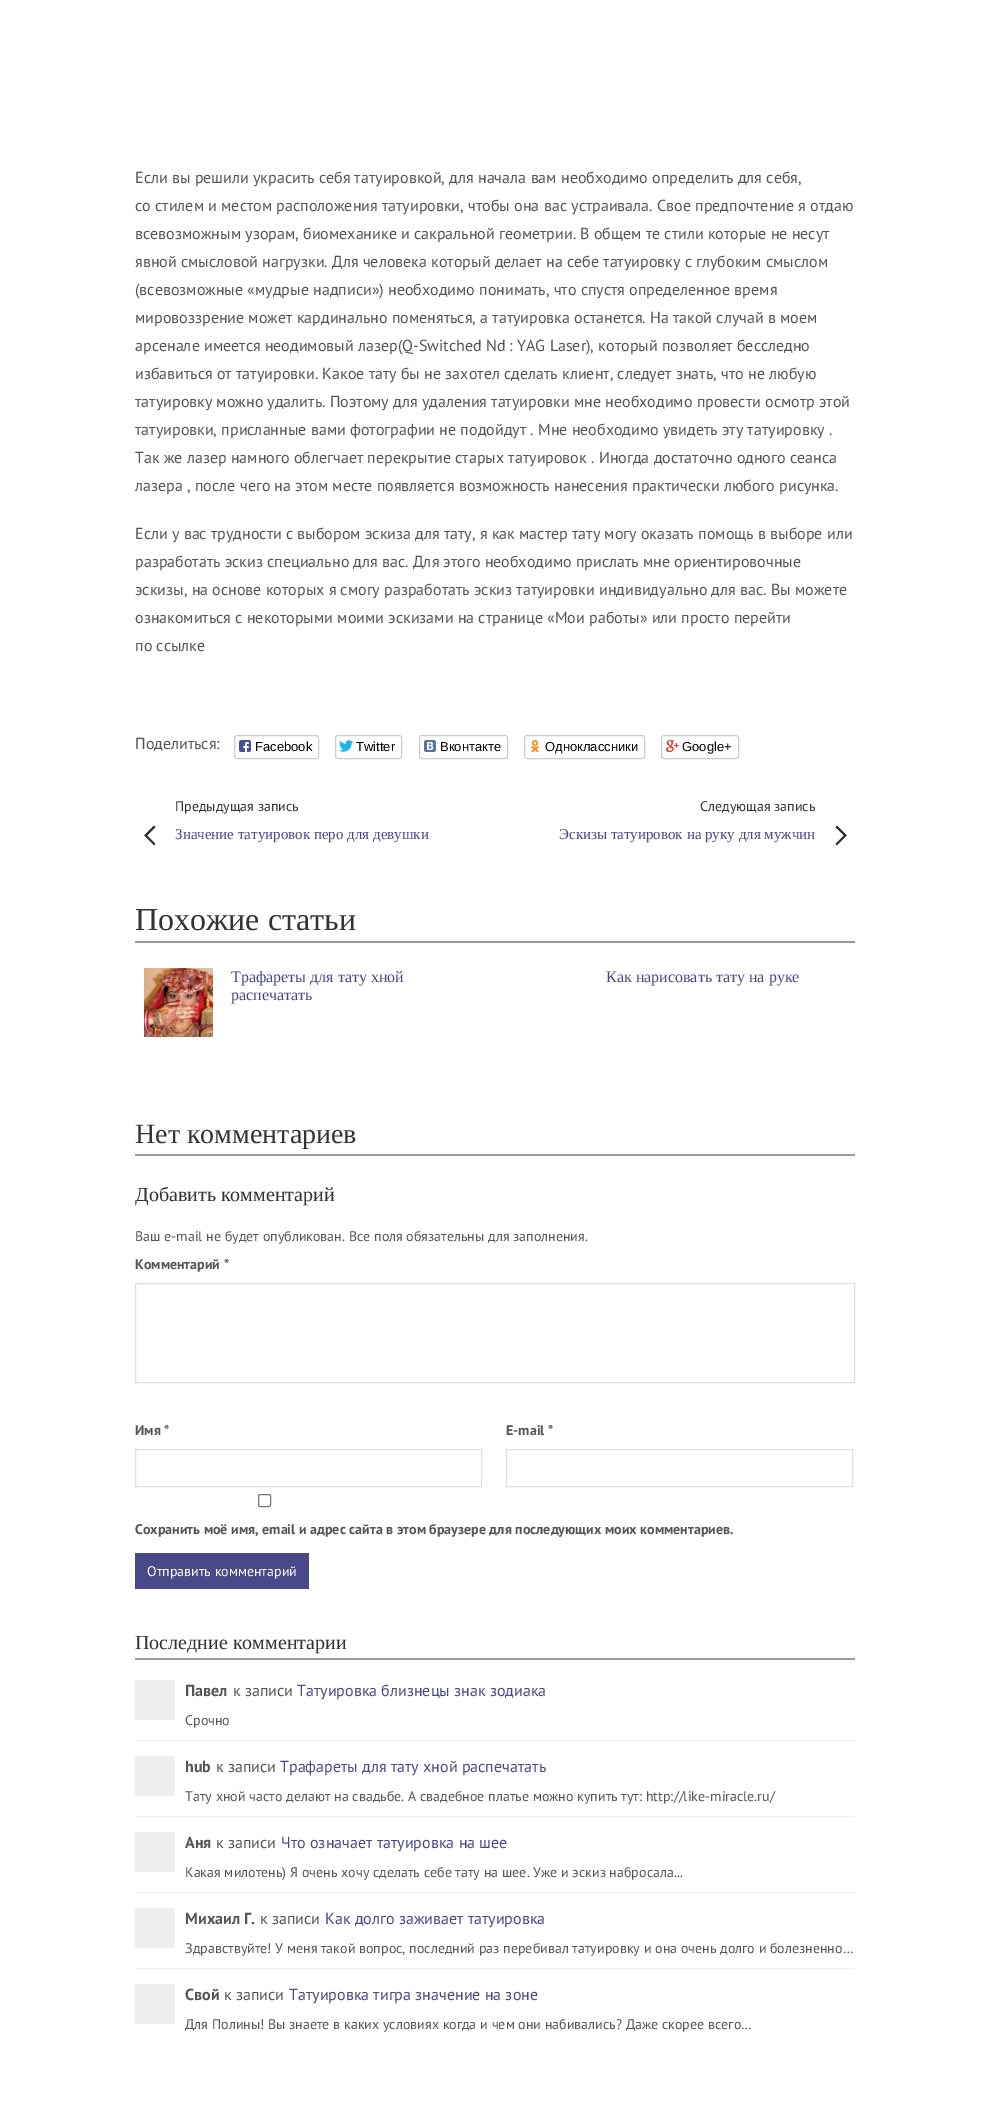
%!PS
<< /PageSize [990 2111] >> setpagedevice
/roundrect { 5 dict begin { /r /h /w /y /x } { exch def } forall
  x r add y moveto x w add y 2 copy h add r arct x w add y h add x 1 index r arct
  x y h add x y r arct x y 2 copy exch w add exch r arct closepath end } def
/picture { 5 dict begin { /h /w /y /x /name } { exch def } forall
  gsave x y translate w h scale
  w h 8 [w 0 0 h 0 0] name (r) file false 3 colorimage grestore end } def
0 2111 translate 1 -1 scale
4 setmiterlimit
1 setgray
0 0 990 2111 rectfill
/PTSans-Regular [16 0 0 -16 0 0] selectfont
0.333 setgray
135 183 moveto (Если вы решили украсить себя татуировкой, для начала вам необходимо определить для себя,) show
135 211 moveto (со стилем и местом расположения татуировки, чтобы она вас устраивала. Свое предпочтение я отдаю) show
135 239 moveto (всевозможным узорам, биомеханике и сакральной геометрии. В общем те стили которые не несут) show
135 267 moveto (явной смысловой нагрузки. Для человека который делает на себе татуировку с глубоким смыслом) show
135 295 moveto (\(всевозможные «мудрые надписи»\) необходимо понимать, что спустя определенное время) show
135 323 moveto (мировоззрение может кардинально поменяться, а татуировка останется. На такой случай в моем) show
135 351 moveto (арсенале имеется неодимовый лазер\(Q-Switched Nd : YAG Laser\), который позволяет бесследно) show
135 379 moveto (избавиться от татуировки. Какое тату бы не захотел сделать клиент, следует знать, что не любую) show
135 407 moveto (татуировку можно удалить. Поэтому для удаления татуировки мне необходимо провести осмотр этой) show
135 435 moveto (татуировки, присланные вами фотографии не подойдут . Мне необходимо увидеть эту татуировку .) show
135 463 moveto (Так же лазер намного облегчает перекрытие старых татуировок . Иногда достаточно одного сеанса) show
135 491 moveto (лазера , после чего на этом месте появляется возможность нанесения практически любого рисунка.) show
135 539 moveto (Если у вас трудности с выбором эскиза для тату, я как мастер тату могу оказать помощь в выборе или) show
135 567 moveto (разработать эскиз специально для вас. Для этого необходимо прислать мне ориентировочные) show
135 595 moveto (эскизы, на основе которых я смогу разработать эскиз татуировки индивидуально для вас. Вы можете) show
135 623 moveto (ознакомиться с некоторыми моими эскизами на странице «Мои работы» или просто перейти) show
135 651 moveto (по ссылке) show
135 749 moveto (Поделиться:) show
0.8 setgray
234.5 735.5 84 23 2.5 roundrect stroke
(img1.rgb) 239 740 12 12 picture
/LiberationSans-Regular [13 0 0 -13 0 0] selectfont
0 setgray
255 751 moveto (Facebook) show
0.8 setgray
335.5 735.5 66 23 2.5 roundrect stroke
(img2.rgb) 339 740 14 12 picture
0 setgray
356 751 moveto (Twitter) show
0.8 setgray
419.5 735.5 88 23 2.5 roundrect stroke
(img3.rgb) 424 740 12 12 picture
0 setgray
440 751 moveto (Вконтакте) show
0.8 setgray
524.5 735.5 120 23 2.5 roundrect stroke
(img4.rgb) 531 740 8 12 picture
0 setgray
545 751 moveto (Одноклассники) show
0.8 setgray
661.5 735.5 77 23 2.5 roundrect stroke
(img5.rgb) 666 740 13 12 picture
0 setgray
682 751 moveto (Google+) show
(img6.rgb) 144 825 12 21 picture
/PTSans-Regular [14 0 0 -14 0 0] selectfont
0.2 setgray
175 811 moveto (Предыдущая запись) show
/LiberationSerif-Regular [15 0 0 -15 0 0] selectfont
0.286 0.286 0.537 setrgbcolor
175 839 moveto (Значение татуировок перо для девушки) show
(img7.rgb) 835 825 12 21 picture
/PTSans-Regular [14 0 0 -14 0 0] selectfont
0.2 setgray
700 811 moveto (Следующая запись) show
/LiberationSerif-Regular [15 0 0 -15 0 0] selectfont
0.286 0.286 0.537 setrgbcolor
559 839 moveto (Эскизы татуировок на руку для мужчин) show
0.6 setgray
135 941 720 2 rectfill
/LiberationSerif-Regular [32 0 0 -32 0 0] selectfont
0.2 setgray
135 930 moveto (Похожие статьи) show
(img8.rgb) 144 968 69 69 picture
/LiberationSerif-Regular [16 0 0 -16 0 0] selectfont
0.286 0.286 0.537 setrgbcolor
231 982 moveto (Трафареты для тату хной) show
231 1000 moveto (распечатать) show
606 982 moveto (Как нарисовать тату на руке) show
0.6 setgray
135 1154 720 2 rectfill
/LiberationSerif-Regular [28 0 0 -28 0 0] selectfont
0.2 setgray
135 1143 moveto (Нет комментариев) show
/LiberationSerif-Regular [20 0 0 -20 0 0] selectfont
135 1201 moveto (Добавить комментарий) show
/PTSans-Regular [14 0 0 -14 0 0] selectfont
0.333 setgray
135 1241 moveto (Ваш e-mail не будет опубликован. Все поля обязательны для заполнения.) show
/PTSans-Bold [14 0 0 -14 0 0] selectfont
135 1269 moveto (Комментарий *) show
0.875 setgray
135.5 1283.5 719 99 rectstroke
0.333 setgray
135 1435 moveto (Имя *) show
0.875 setgray
135.5 1449.5 346 37 rectstroke
0.333 setgray
506 1435 moveto (E-mail *) show
0.875 setgray
506.5 1449.5 346 37 rectstroke
0.463 setgray
258.5 1494.5 12 12 1.5 roundrect stroke
0.333 setgray
135 1534 moveto (Сохранить моё имя, email и адрес сайта в этом браузере для последующих моих комментариев.) show
0.286 0.286 0.537 setrgbcolor
135 1553 174 36 rectfill
/PTSans-Regular [14 0 0 -14 0 0] selectfont
1 setgray
147 1576 moveto (Отправить комментарий) show
0.6 setgray
135 1658 720 2 rectfill
/LiberationSerif-Regular [20 0 0 -20 0 0] selectfont
0.2 setgray
135 1649 moveto (Последние комментарии) show
0.933 setgray
135 1680 40 40 rectfill
/PTSans-Bold [16 0 0 -16 0 0] selectfont
0.333 setgray
185 1696 moveto (Павел) show
/PTSans-Regular [16 0 0 -16 0 0] selectfont
233 1696 moveto (к записи) show
0.286 0.286 0.537 setrgbcolor
297 1696 moveto (Татуировка близнецы знак зодиака) show
/PTSans-Regular [14 0 0 -14 0 0] selectfont
0.333 setgray
185 1725 moveto (Срочно) show
0.933 setgray
135 1740 720 1 rectfill
135 1756 40 40 rectfill
/PTSans-Bold [16 0 0 -16 0 0] selectfont
0.333 setgray
185 1772 moveto (hub) show
/PTSans-Regular [16 0 0 -16 0 0] selectfont
216 1772 moveto (к записи) show
0.286 0.286 0.537 setrgbcolor
280 1772 moveto (Трафареты для тату хной распечатать) show
/PTSans-Regular [14 0 0 -14 0 0] selectfont
0.333 setgray
185 1801 moveto (Тату хной часто делают на свадьбе. А свадебное платье можно купить тут: http://like-miracle.ru/) show
0.933 setgray
135 1816 720 1 rectfill
135 1832 40 40 rectfill
/PTSans-Bold [16 0 0 -16 0 0] selectfont
0.333 setgray
185 1848 moveto (Аня) show
/PTSans-Regular [16 0 0 -16 0 0] selectfont
216 1848 moveto (к записи) show
0.286 0.286 0.537 setrgbcolor
281 1848 moveto (Что означает татуировка на шее) show
/PTSans-Regular [14 0 0 -14 0 0] selectfont
0.333 setgray
185 1877 moveto (Какая милотень\) Я очень хочу сделать себе тату на шее. Уже и эскиз набросала...) show
0.933 setgray
135 1892 720 1 rectfill
135 1908 40 40 rectfill
/PTSans-Bold [16 0 0 -16 0 0] selectfont
0.333 setgray
185 1924 moveto (Михаил Г.) show
/PTSans-Regular [16 0 0 -16 0 0] selectfont
260 1924 moveto (к записи) show
0.286 0.286 0.537 setrgbcolor
325 1924 moveto (Как долго заживает татуировка) show
/PTSans-Regular [14 0 0 -14 0 0] selectfont
0.333 setgray
185 1953 moveto (Здравствуйте! У меня такой вопрос, последний раз перебивал татуировку и она очень долго и болезненно…) show
0.933 setgray
135 1968 720 1 rectfill
135 1984 40 40 rectfill
/PTSans-Bold [16 0 0 -16 0 0] selectfont
0.333 setgray
185 2000 moveto (Свой) show
/PTSans-Regular [16 0 0 -16 0 0] selectfont
224 2000 moveto (к записи) show
0.286 0.286 0.537 setrgbcolor
289 2000 moveto (Татуировка тигра значение на зоне) show
/PTSans-Regular [14 0 0 -14 0 0] selectfont
0.333 setgray
185 2029 moveto (Для Полины! Вы знаете в каких условиях когда и чем они набивались? Даже скорее всего…) show
showpage
